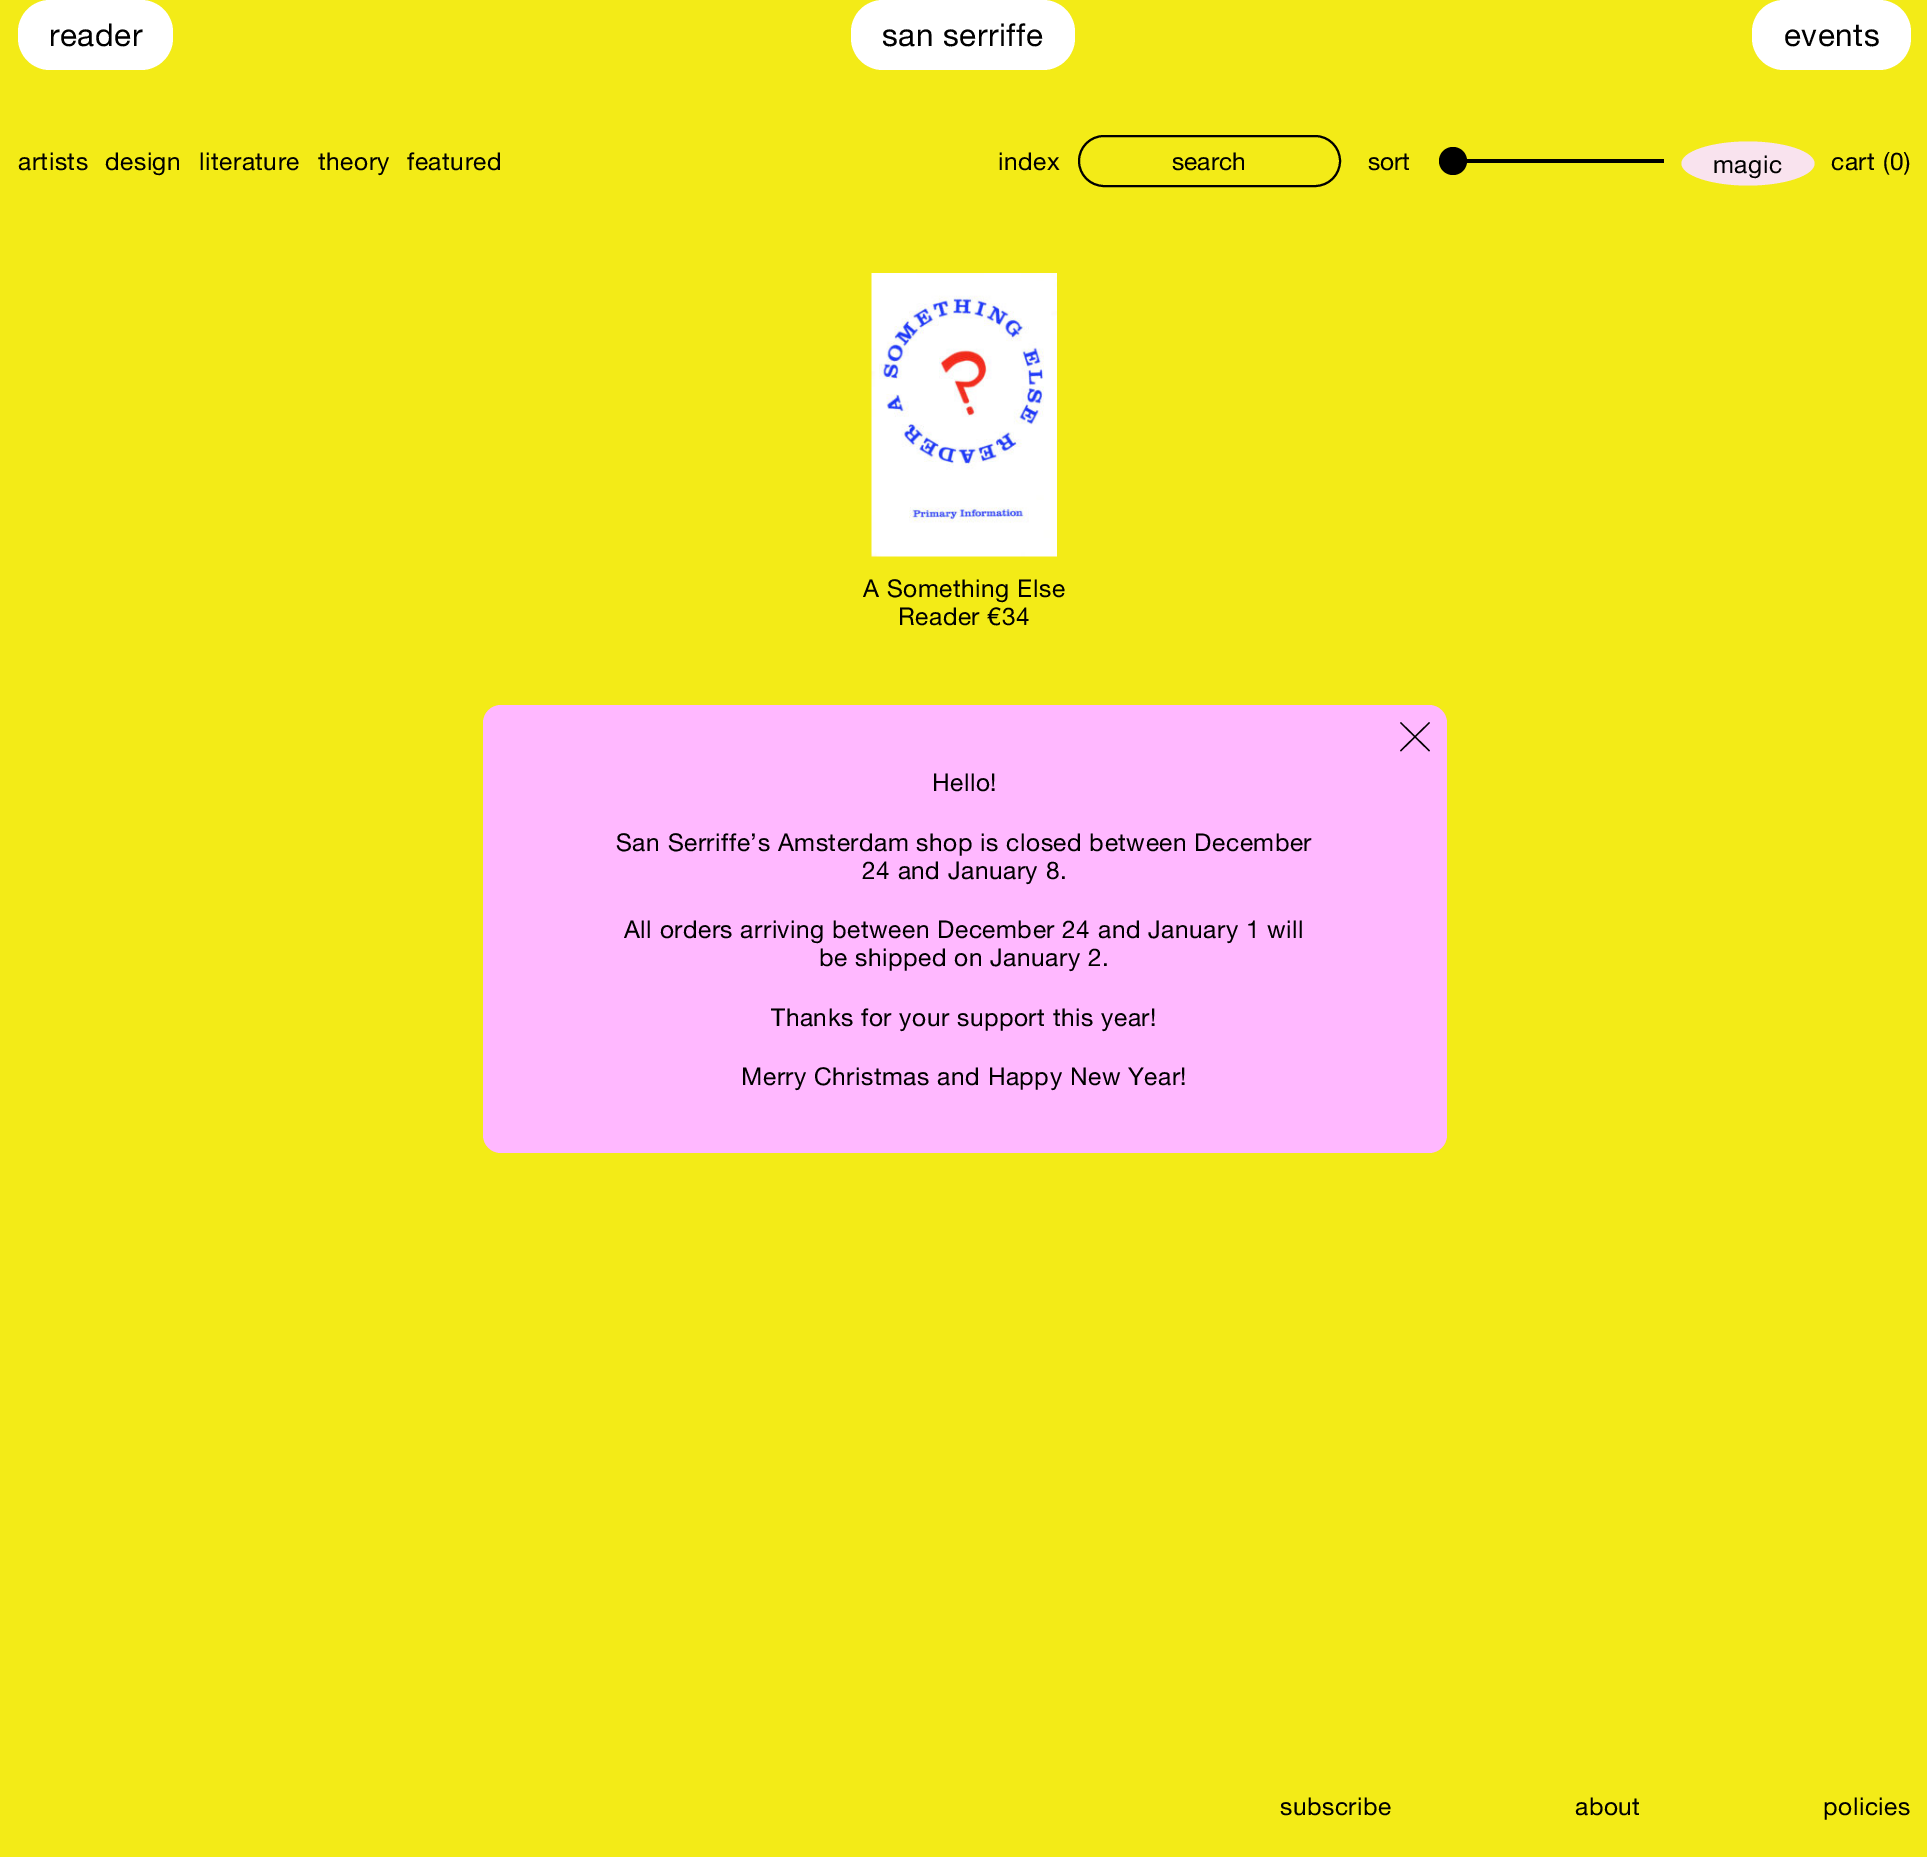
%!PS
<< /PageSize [1927 1857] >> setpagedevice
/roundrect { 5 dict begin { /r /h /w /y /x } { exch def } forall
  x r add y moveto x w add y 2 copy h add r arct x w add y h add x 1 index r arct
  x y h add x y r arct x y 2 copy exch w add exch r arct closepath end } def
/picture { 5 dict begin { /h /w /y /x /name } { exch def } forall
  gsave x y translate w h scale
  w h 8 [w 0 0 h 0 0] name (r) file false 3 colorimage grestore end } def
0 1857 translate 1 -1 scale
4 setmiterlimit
0.953 0.922 0.09 setrgbcolor
0 0 1927 1857 rectfill
1 setgray
18 0 155 70 32 roundrect fill
/HelveticaNeue-Regular [31.5 0 0 -31.5 0 0] selectfont
0 setgray
49 46 moveto 0.53 0 (reader) ashow
1 setgray
851 0 224 70 32 roundrect fill
0 setgray
882 46 moveto 0.53 0 (san serriffe) ashow
1 setgray
1752 0 159 70 32 roundrect fill
0 setgray
1784 46 moveto 0.53 0 (events) ashow
/HelveticaNeue-Regular [24.5 0 0 -24.5 0 0] selectfont
18 170 moveto 0.53 0 (artists) ashow
105 170 moveto 0.53 0 (design) ashow
199 170 moveto 0.53 0 (literature) ashow
318 170 moveto 0.53 0 (theory) ashow
407 170 moveto 0.53 0 (featured) ashow
998 170 moveto 0.53 0 (index) ashow
2 setlinewidth
1079 136 261 50 25 roundrect stroke
1172 170 moveto (search) show
1368 170 moveto (sort) show
1439 159 225 4 rectfill
newpath 1453 161 14 0 360 arc closepath fill
0.976 0.89 0.933 setrgbcolor
newpath 1748 141.5 moveto 1784.5 141.5 1814.5 151.5 1814.5 163.5 curveto 1814.5 175.5 1784.5 185.5 1748 185.5 curveto 1711.5 185.5 1681.5 175.5 1681.5 163.5 curveto 1681.5 151.5 1711.5 141.5 1748 141.5 curveto closepath fill
0 setgray
1713 173 moveto 0.53 0 (magic) ashow
1831 170 moveto 0.53 0 (cart \(0\)) ashow
(img1.rgb) 871 273 186 284 picture
863 597 moveto 0.53 0 (A Something Else) ashow
898 625 moveto 0.53 0 (Reader €34) ashow
1 0.722 1 setrgbcolor
483 705 964 448 18 roundrect fill
0 setgray
1.3 setlinewidth
newpath 1400.5 722.5 moveto 1429.5 751 lineto 1400.5 751 moveto 1429.5 722.5 lineto stroke
932 791 moveto 0.53 0 (Hello!) ashow
616 851 moveto 0.53 0 (San Serriffe’s Amsterdam shop is closed between December) ashow
862 879 moveto 0.53 0 (24 and January 8.) ashow
624 938 moveto 0.53 0 (All orders arriving between December 24 and January 1 will) ashow
819 966 moveto 0.53 0 (be shipped on January 2.) ashow
771 1026 moveto 0.53 0 (Thanks for your support this year!) ashow
741 1085 moveto 0.53 0 (Merry Christmas and Happy New Year!) ashow
1280 1815 moveto 0.53 0 (subscribe) ashow
1575 1815 moveto 0.53 0 (about) ashow
1823 1815 moveto 0.53 0 (policies) ashow
showpage
